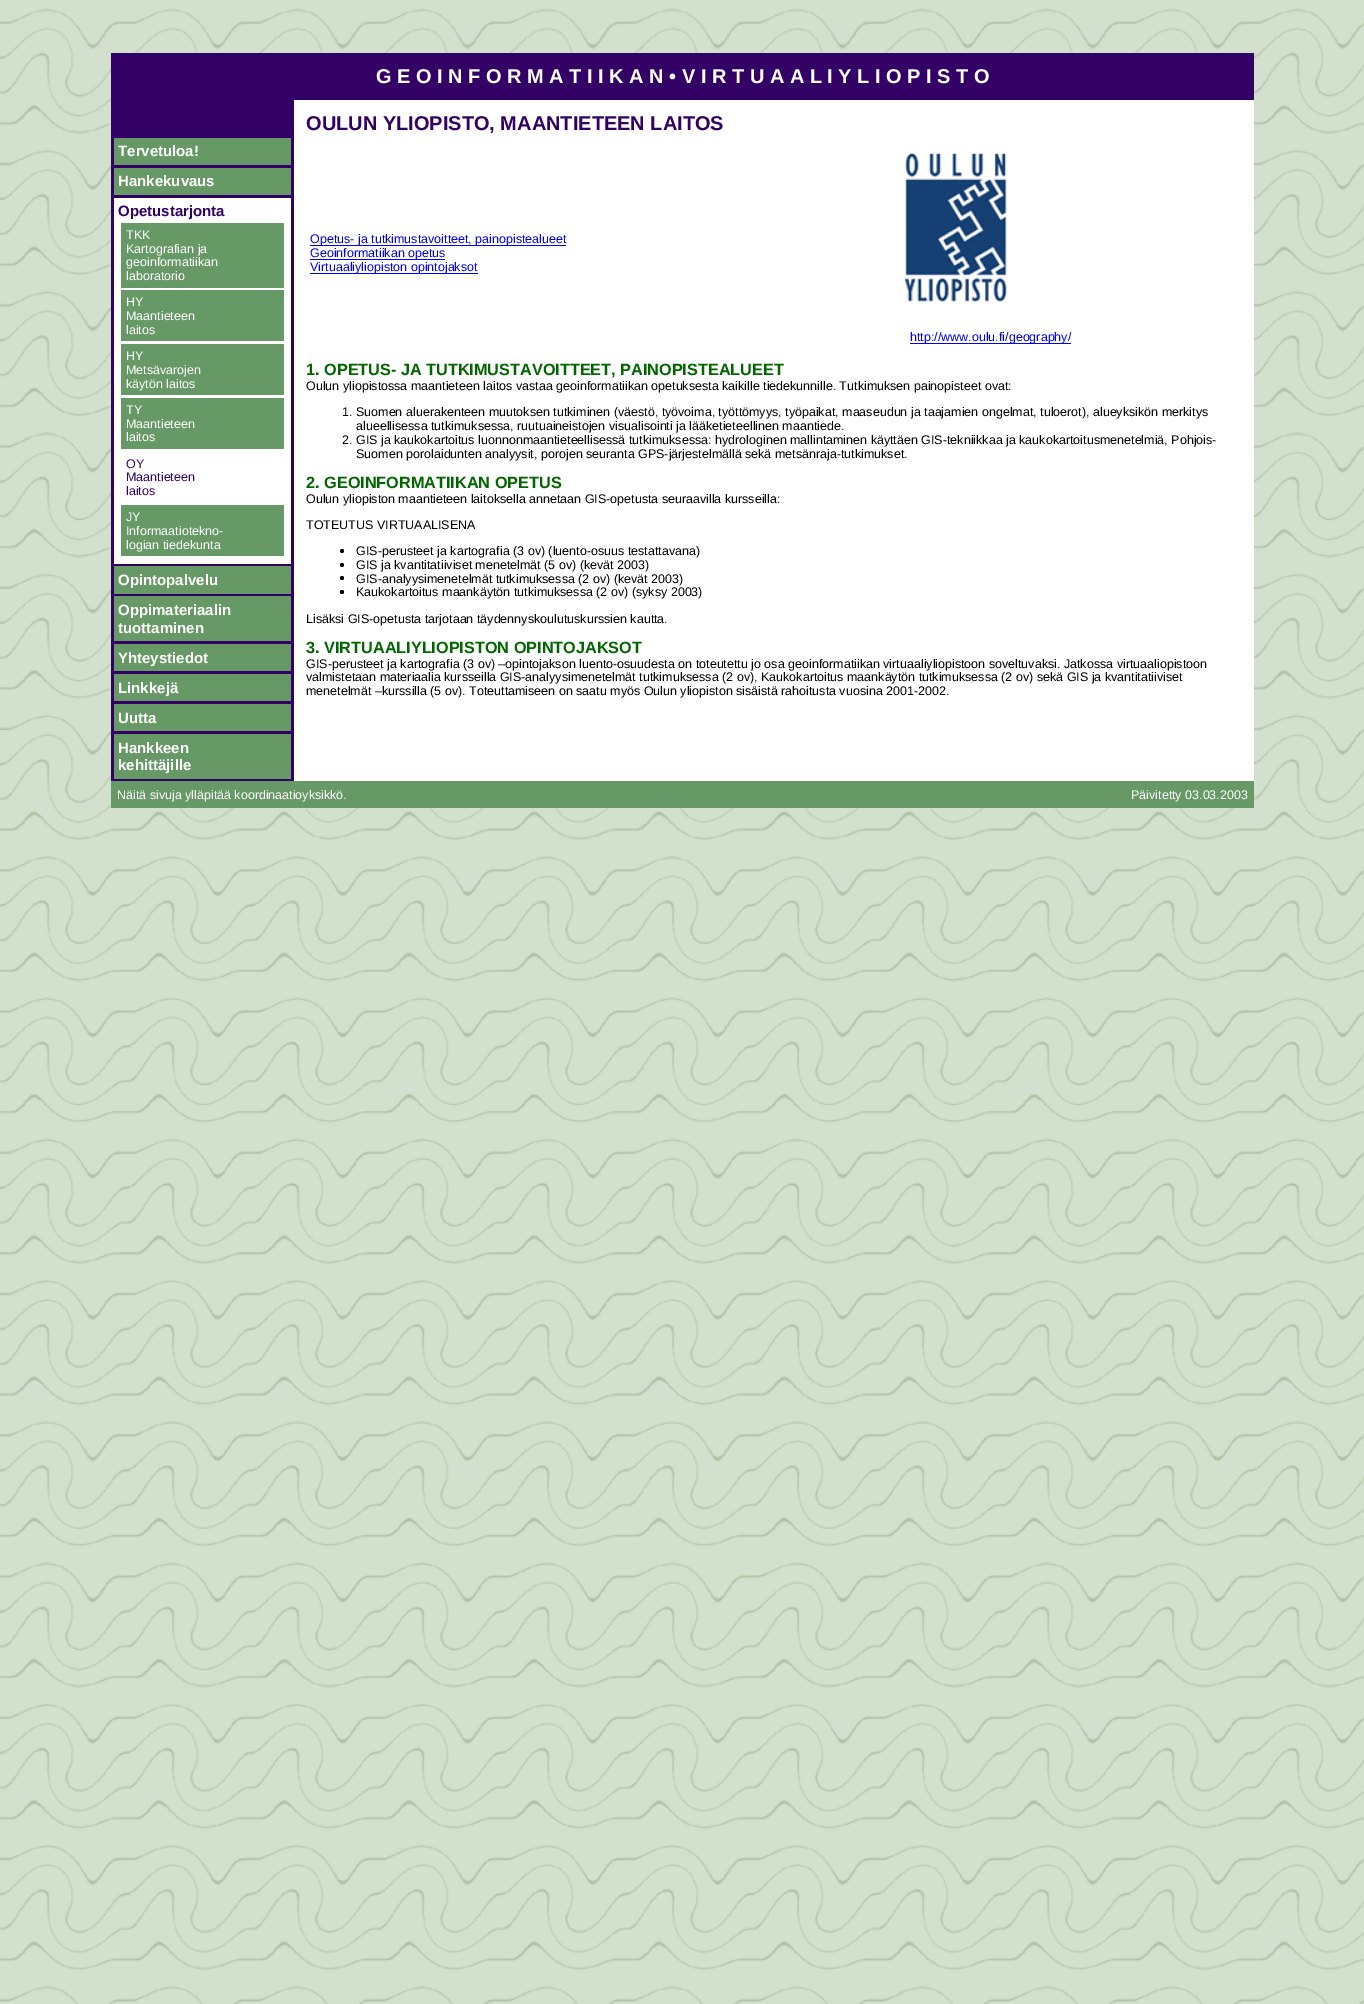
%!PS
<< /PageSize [1364 2004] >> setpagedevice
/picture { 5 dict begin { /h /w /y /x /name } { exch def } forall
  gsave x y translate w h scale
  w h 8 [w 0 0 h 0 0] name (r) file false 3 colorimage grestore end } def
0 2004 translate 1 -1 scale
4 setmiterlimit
1 setgray
0 0 1364 2004 rectfill
(img1.rgb) 0 0 1364 2004 picture
0.2 0 0.4 setrgbcolor
111 53 1143 47 rectfill
/LiberationSans-Bold [20 0 0 -20 0 0] selectfont
1 setgray
376 83 moveto (G E O I N F O R M A T I I K A N • V I R T U A A L I Y L I O P I S T O) show
0.2 0 0.4 setrgbcolor
111 100 183 681 rectfill
0.4 0.6 0.4 setrgbcolor
114 138 177 27 rectfill
/LiberationSans-Bold [15 0 0 -15 0 0] selectfont
1 setgray
118 156 moveto (Tervetuloa!) show
0.4 0.6 0.4 setrgbcolor
114 168 177 27 rectfill
1 setgray
118 186 moveto (Hankekuvaus) show
114 198 177 366 rectfill
0.2 0 0.4 setrgbcolor
118 216 moveto (Opetustarjonta) show
0.4 0.6 0.4 setrgbcolor
121 223 163 65 rectfill
/LiberationSans-Regular [12.5 0 0 -12.5 0 0] selectfont
1 setgray
126 239 moveto (TKK) show
126 253 moveto (Kartografian ja) show
126 266 moveto (geoinformatiikan) show
126 280 moveto (laboratorio) show
0.4 0.6 0.4 setrgbcolor
121 290 163 51 rectfill
1 setgray
126 306 moveto (HY) show
126 320 moveto (Maantieteen) show
126 334 moveto (laitos) show
0.4 0.6 0.4 setrgbcolor
121 344 163 51 rectfill
1 setgray
126 360 moveto (HY) show
126 374 moveto (Metsävarojen) show
126 388 moveto (käytön laitos) show
0.4 0.6 0.4 setrgbcolor
121 398 163 51 rectfill
1 setgray
126 414 moveto (TY) show
126 428 moveto (Maantieteen) show
126 441 moveto (laitos) show
0.2 0 0.4 setrgbcolor
126 468 moveto (OY) show
126 481 moveto (Maantieteen) show
126 495 moveto (laitos) show
0.4 0.6 0.4 setrgbcolor
121 505 163 51 rectfill
1 setgray
126 521 moveto (JY) show
126 535 moveto (Informaatiotekno-) show
126 549 moveto (logian tiedekunta) show
0.4 0.6 0.4 setrgbcolor
114 566 177 28 rectfill
/LiberationSans-Bold [15 0 0 -15 0 0] selectfont
1 setgray
118 585 moveto (Opintopalvelu) show
0.4 0.6 0.4 setrgbcolor
114 596 177 45 rectfill
1 setgray
118 615 moveto (Oppimateriaalin) show
118 633 moveto (tuottaminen) show
0.4 0.6 0.4 setrgbcolor
114 644 177 27 rectfill
1 setgray
118 663 moveto (Yhteystiedot) show
0.4 0.6 0.4 setrgbcolor
114 674 177 27 rectfill
1 setgray
118 693 moveto (Linkkejä) show
0.4 0.6 0.4 setrgbcolor
114 704 177 27 rectfill
1 setgray
118 723 moveto (Uutta) show
0.4 0.6 0.4 setrgbcolor
114 734 177 45 rectfill
1 setgray
118 753 moveto (Hankkeen) show
118 770 moveto (kehittäjille) show
294 100 960 681 rectfill
/LiberationSans-Bold [20 0 0 -20 0 0] selectfont
0.2 0 0.4 setrgbcolor
306 130 moveto (OULUN YLIOPISTO, MAANTIETEEN LAITOS) show
0 0 0.933 setrgbcolor
310 245 256 1 rectfill
/LiberationSans-Regular [12.5 0 0 -12.5 0 0] selectfont
310 243 moveto (Opetus- ja tutkimustavoitteet, painopistealueet) show
310 259 135 1 rectfill
310 257 moveto (Geoinformatiikan opetus) show
310 273 168 1 rectfill
310 271 moveto (Virtuaaliyliopiston opintojaksot) show
(img2.rgb) 904 153 103 149 picture
910 343 161 1 rectfill
910 341 moveto (http://www.oulu.fi/geography/) show
/LiberationSans-Bold [16.25 0 0 -16.25 0 0] selectfont
0 0.4 0 setrgbcolor
306 375 moveto (1. OPETUS- JA TUTKIMUSTAVOITTEET, PAINOPISTEALUEET) show
/LiberationSans-Regular [12.5 0 0 -12.5 0 0] selectfont
0 setgray
306 390 moveto (Oulun yliopistossa maantieteen laitos vastaa geoinformatiikan opetuksesta kaikille tiedekunnille. Tutkimuksen painopisteet ovat:) show
342 416 moveto (1. Suomen aluerakenteen muutoksen tutkiminen \(väestö, työvoima, työttömyys, työpaikat, maaseudun ja taajamien ongelmat, tuloerot\), alueyksikön merkitys) show
356 430 moveto (alueellisessa tutkimuksessa, ruutuaineistojen visualisointi ja lääketieteellinen maantiede.) show
342 444 moveto (2. GIS ja kaukokartoitus luonnonmaantieteellisessä tutkimuksessa: hydrologinen mallintaminen käyttäen GIS-tekniikkaa ja kaukokartoitusmenetelmiä, Pohjois-) show
356 458 moveto (Suomen porolaidunten analyysit, porojen seuranta GPS-järjestelmällä sekä metsänraja-tutkimukset.) show
/LiberationSans-Bold [16.25 0 0 -16.25 0 0] selectfont
0 0.4 0 setrgbcolor
306 488 moveto (2. GEOINFORMATIIKAN OPETUS) show
/LiberationSans-Regular [12.5 0 0 -12.5 0 0] selectfont
0 setgray
306 503 moveto (Oulun yliopiston maantieteen laitoksella annetaan GIS-opetusta seuraavilla kursseilla:) show
306 529 moveto (TOTEUTUS VIRTUAALISENA) show
newpath 342 551 2 0 360 arc closepath fill
356 555 moveto (GIS-perusteet ja kartografia \(3 ov\) \(luento-osuus testattavana\)) show
newpath 342 565 2 0 360 arc closepath fill
356 569 moveto (GIS ja kvantitatiiviset menetelmät \(5 ov\) \(kevät 2003\)) show
newpath 342 578 2 0 360 arc closepath fill
356 583 moveto (GIS-analyysimenetelmät tutkimuksessa \(2 ov\) \(kevät 2003\)) show
newpath 342 592 2 0 360 arc closepath fill
356 596 moveto (Kaukokartoitus maankäytön tutkimuksessa \(2 ov\) \(syksy 2003\)) show
306 623 moveto (Lisäksi GIS-opetusta tarjotaan täydennyskoulutuskurssien kautta.) show
/LiberationSans-Bold [16.25 0 0 -16.25 0 0] selectfont
0 0.4 0 setrgbcolor
306 653 moveto (3. VIRTUAALIYLIOPISTON OPINTOJAKSOT) show
/LiberationSans-Regular [12.5 0 0 -12.5 0 0] selectfont
0 setgray
306 668 moveto (GIS-perusteet ja kartografia \(3 ov\) –opintojakson luento-osuudesta on toteutettu jo osa geoinformatiikan virtuaaliyliopistoon soveltuvaksi. Jatkossa virtuaaliopistoon) show
306 681 moveto (valmistetaan materiaalia kursseilla GIS-analyysimenetelmät tutkimuksessa \(2 ov\), Kaukokartoitus maankäytön tutkimuksessa \(2 ov\) sekä GIS ja kvantitatiiviset) show
306 695 moveto (menetelmät –kurssilla \(5 ov\). Toteuttamiseen on saatu myös Oulun yliopiston sisäistä rahoitusta vuosina 2001-2002.) show
0.4 0.6 0.4 setrgbcolor
111 781 1143 27 rectfill
1 setgray
117 799 moveto (Näitä sivuja ylläpitää koordinaatioyksikkö.) show
1131 799 moveto (Päivitetty 03.03.2003) show
showpage
